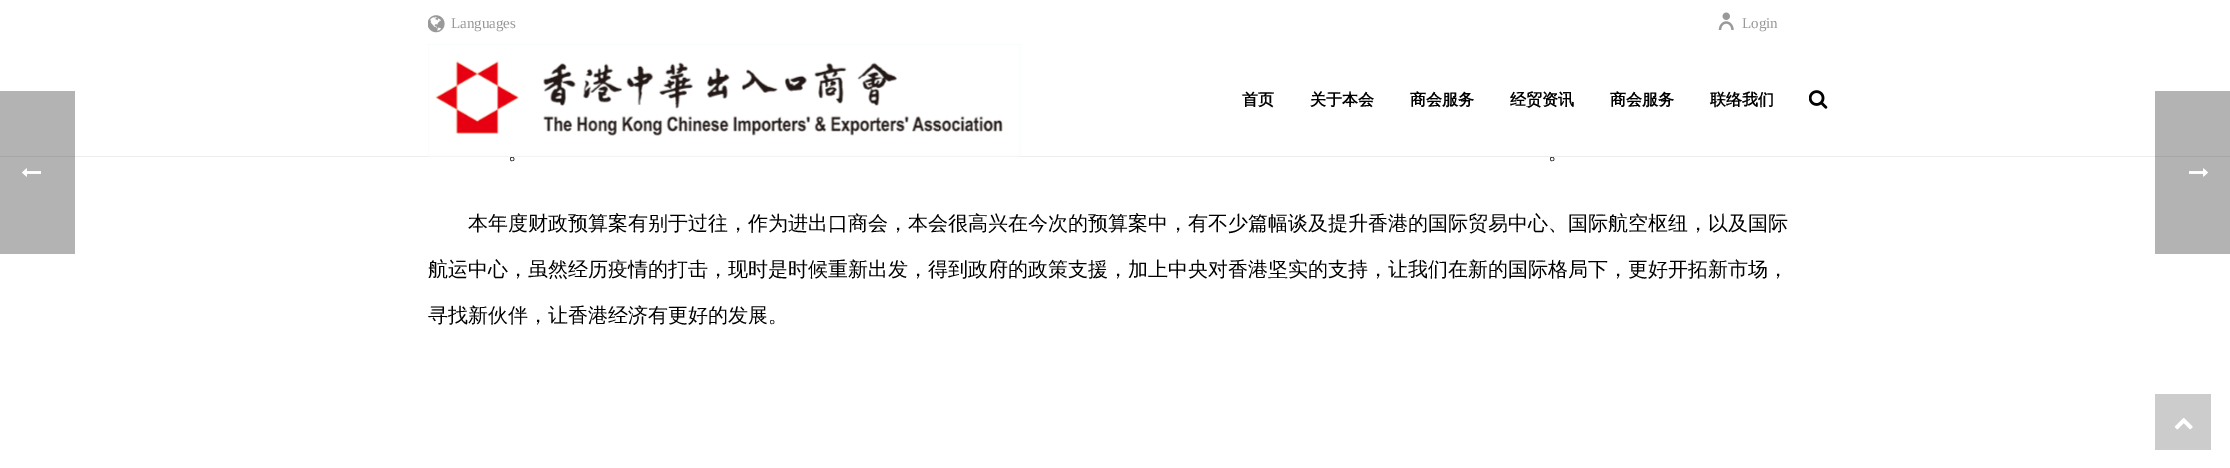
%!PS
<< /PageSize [2230 468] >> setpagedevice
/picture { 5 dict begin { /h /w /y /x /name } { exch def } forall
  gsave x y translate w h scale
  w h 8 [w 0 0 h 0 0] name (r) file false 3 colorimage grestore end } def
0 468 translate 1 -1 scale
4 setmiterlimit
1 setgray
0 0 2230 468 rectfill
0.702 setgray
2155 157 75 97 rectfill
0 157 75 97 rectfill
(img1.rgb) 22 168 19 9 picture
(img2.rgb) 428 15 17 18 picture
/LiberationSerif-Regular [15 0 0 -15 0 0] selectfont
0.6 setgray
451 28 moveto (Languages) show
(img3.rgb) 1718 12 16 18 picture
1742 28 moveto (Login) show
/WenQuanYiZenHei-Medium [20 0 0 -20 0 0] selectfont
0 setgray
508 159 moveto (。) show
1548 159 moveto (。) show
0.929 setgray
75 156 2080 1 rectfill
0.651 setgray
2155 156 75 1 rectfill
0 156 75 1 rectfill
0.702 setgray
2155 91 75 65 rectfill
0 91 75 65 rectfill
(img4.rgb) 428 44 593 113 picture
/WenQuanYiZenHei-Bold [16 0 0 -16 0 0] selectfont
0 setgray
1242 105 moveto (首页) show
1310 105 moveto (关于本会) show
1410 105 moveto (商会服务) show
1510 105 moveto (经贸资讯) show
1610 105 moveto (商会服务) show
1710 105 moveto (联络我们) show
(img5.rgb) 1809 90 19 19 picture
/WenQuanYiZenHei-Medium [20 0 0 -20 0 0] selectfont
468 230 moveto (本年度财政预算案有别于过往，作为进出口商会，本会很高兴在今次的预算案中，有不少篇幅谈及提升香港的国际贸易中心、国际航空枢纽，以及国际) show
428 276 moveto (航运中心，虽然经历疫情的打击，现时是时候重新出发，得到政府的政策支援，加上中央对香港坚实的支持，让我们在新的国际格局下，更好开拓新市场，) show
428 322 moveto (寻找新伙伴，让香港经济有更好的发展。) show
(img6.rgb) 2189 168 19 9 picture
0.8 setgray
2155 394 56 56 rectfill
(img7.rgb) 2174 418 19 12 picture
showpage
